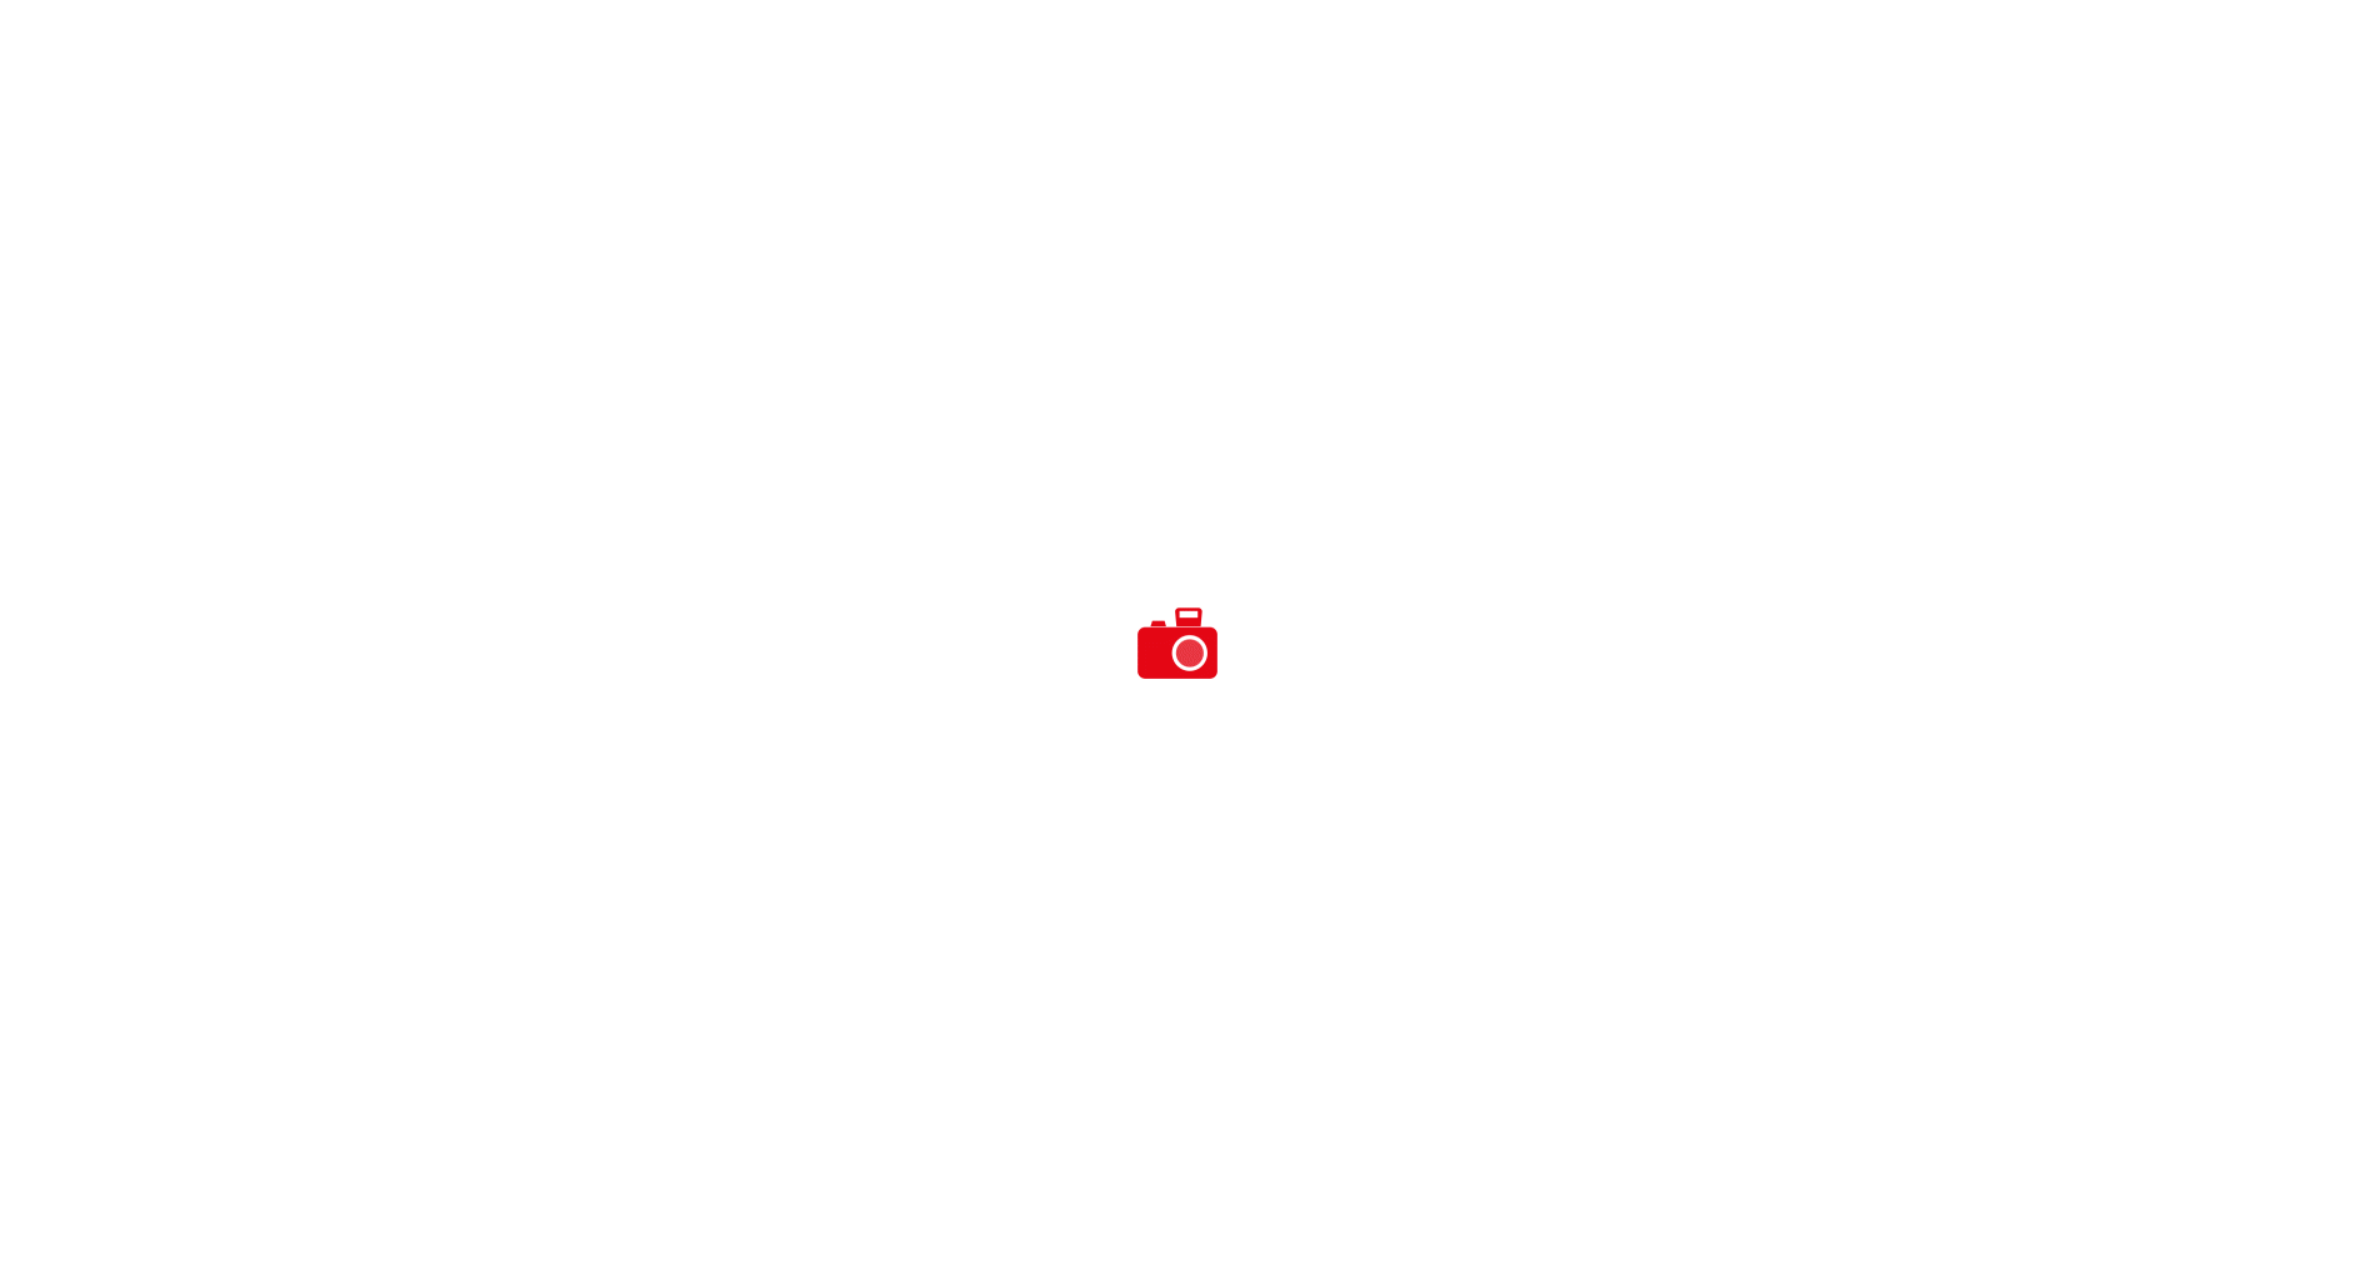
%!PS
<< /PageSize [2354 1285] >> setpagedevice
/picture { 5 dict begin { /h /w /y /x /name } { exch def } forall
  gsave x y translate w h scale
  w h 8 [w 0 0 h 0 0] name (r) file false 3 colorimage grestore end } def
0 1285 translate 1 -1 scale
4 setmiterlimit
1 setgray
0 0 2354 1285 rectfill
(img1.rgb) 1137 607 81 72 picture
showpage
